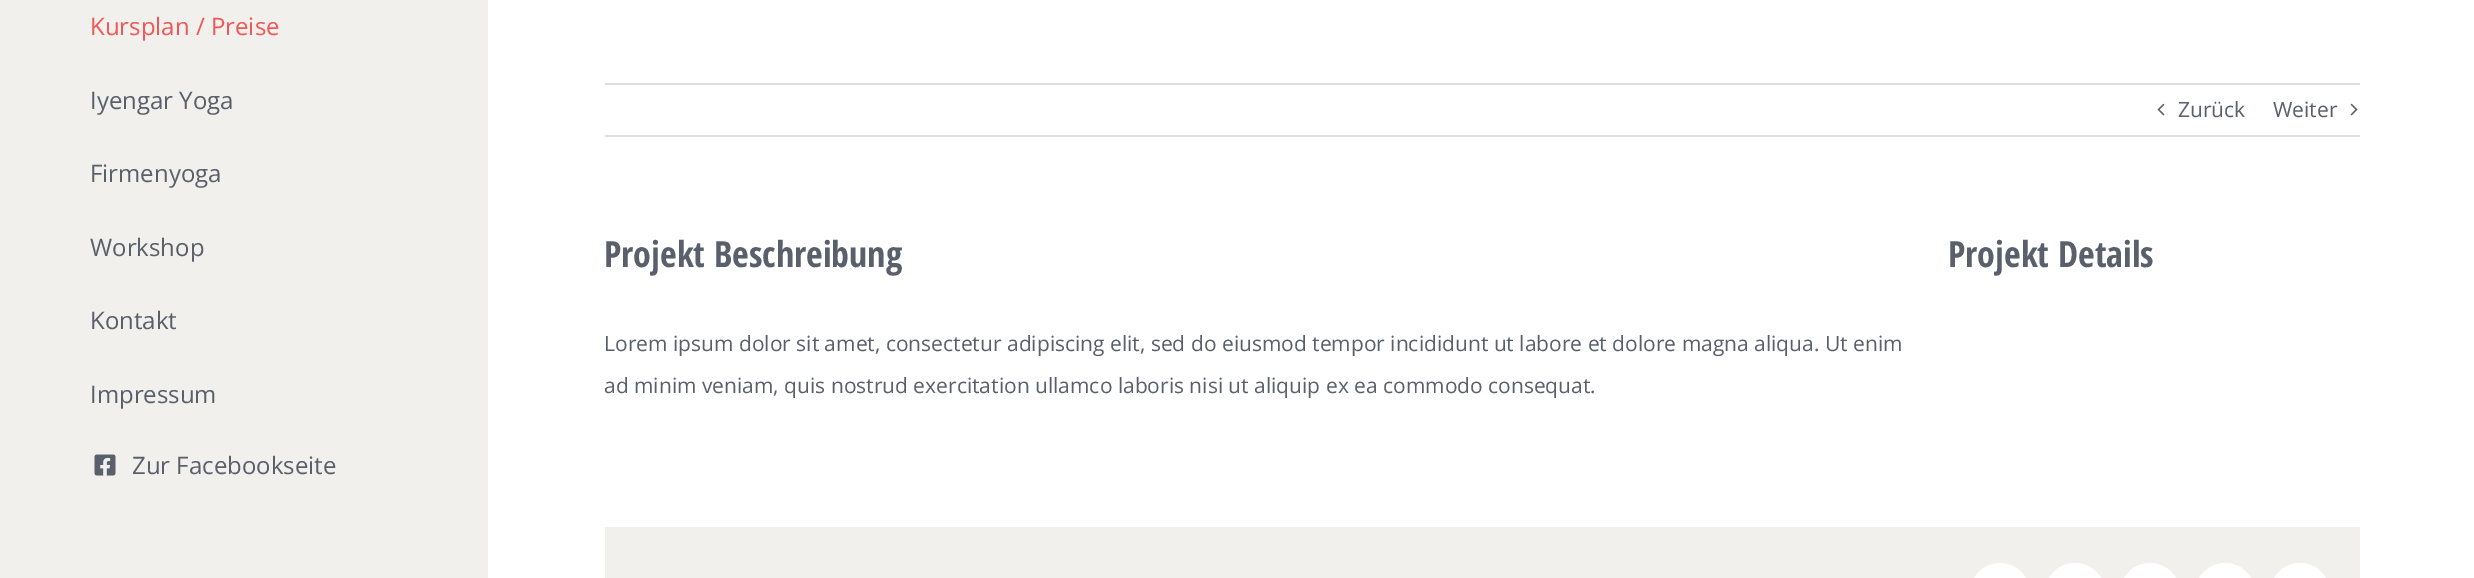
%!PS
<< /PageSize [2474 578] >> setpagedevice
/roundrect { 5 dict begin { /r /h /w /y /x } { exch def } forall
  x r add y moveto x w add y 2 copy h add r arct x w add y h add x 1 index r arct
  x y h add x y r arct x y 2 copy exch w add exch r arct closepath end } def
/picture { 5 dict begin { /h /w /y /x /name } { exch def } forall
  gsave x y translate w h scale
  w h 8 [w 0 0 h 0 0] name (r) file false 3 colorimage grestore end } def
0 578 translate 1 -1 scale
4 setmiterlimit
1 setgray
0 0 2474 578 rectfill
0.945 0.941 0.925 setrgbcolor
0 0 488 578 rectfill
/OpenSans-Regular [24 0 0 -24 0 0] selectfont
0.941 0.345 0.345 setrgbcolor
90 35 moveto (Kursplan / Preise) show
0.349 0.373 0.42 setrgbcolor
90 109 moveto (Iyengar Yoga) show
90 182 moveto (Firmenyoga) show
90 256 moveto (Workshop) show
90 329 moveto (Kontakt) show
90 403 moveto (Impressum) show
(img1.rgb) 94 454 22 22 picture
132 474 moveto (Zur Facebookseite) show
0.878 0.871 0.871 setrgbcolor
605 83 1755 2 rectfill
605 135 1755 2 rectfill
(img2.rgb) 2157 103 8 13 picture
/OpenSans-Regular [21 0 0 -21 0 0] selectfont
0.349 0.373 0.42 setrgbcolor
2178 117 moveto (Zurück) show
2273 117 moveto (Weiter) show
(img3.rgb) 2350 103 8 13 picture
/OpenSansCondensed-Bold [36 0 0 -36 0 0] selectfont
604 267 moveto (Projekt Beschreibung) show
/OpenSans-Regular [21 0 0 -21 0 0] selectfont
604 351 moveto (Lorem ipsum dolor sit amet, consectetur adipiscing elit, sed do eiusmod tempor incididunt ut labore et dolore magna aliqua. Ut enim) show
604 393 moveto (ad minim veniam, quis nostrud exercitation ullamco laboris nisi ut aliquip ex ea commodo consequat.) show
/OpenSansCondensed-Bold [36 0 0 -36 0 0] selectfont
1948 267 moveto (Projekt Details) show
0.945 0.941 0.925 setrgbcolor
605 527 1755 51 rectfill
1 setgray
1971 564 58 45 29 roundrect gsave fill grestore
2 setlinewidth
stroke
2046 564 58 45 29 roundrect gsave fill grestore
stroke
2121 564 58 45 29 roundrect gsave fill grestore
stroke
2196 564 58 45 29 roundrect gsave fill grestore
stroke
2271 564 58 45 29 roundrect gsave fill grestore
stroke
showpage
